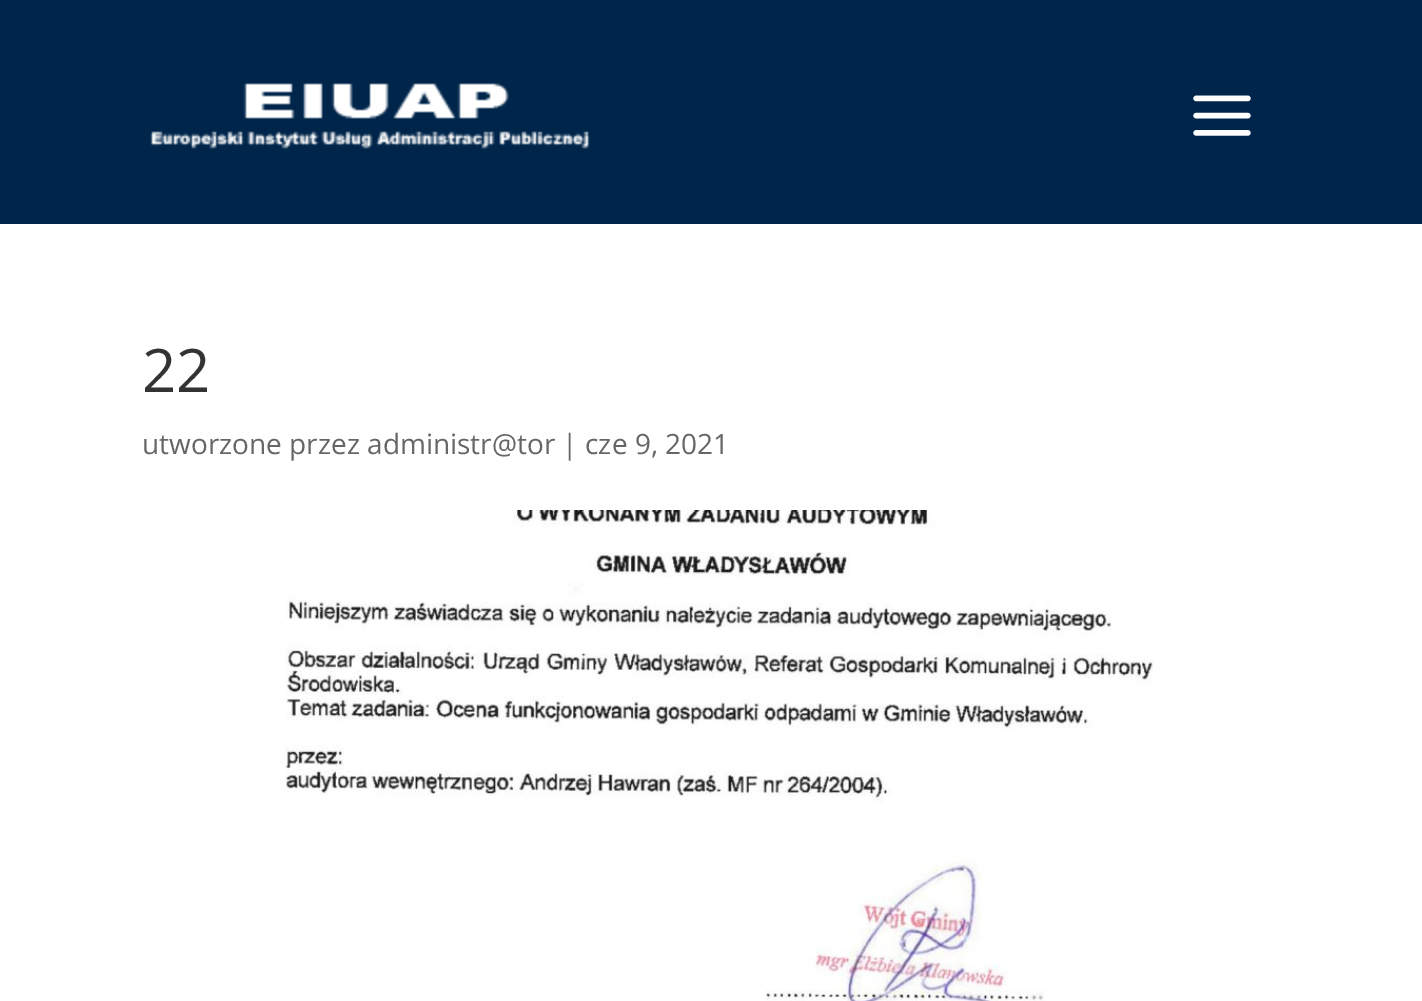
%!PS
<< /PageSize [1422 1001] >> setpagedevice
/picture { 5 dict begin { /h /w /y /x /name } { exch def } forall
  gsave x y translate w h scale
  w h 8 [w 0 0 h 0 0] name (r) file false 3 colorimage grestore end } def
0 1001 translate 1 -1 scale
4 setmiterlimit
1 setgray
0 0 1422 1001 rectfill
0 0.145 0.29 setrgbcolor
0 0 1422 224 rectfill
(img1.rgb) 150 83 440 66 picture
(img2.rgb) 1193 95 58 41 picture
/OpenSans-Regular [60 0 0 -60 0 0] selectfont
0.2 setgray
142 392 moveto (22) show
/OpenSans-Regular [28 0 0 -28 0 0] selectfont
0.4 setgray
142 454 moveto (utworzone przez administr@tor | cze 9, 2021) show
(img3.rgb) 285 510 868 491 picture
showpage
